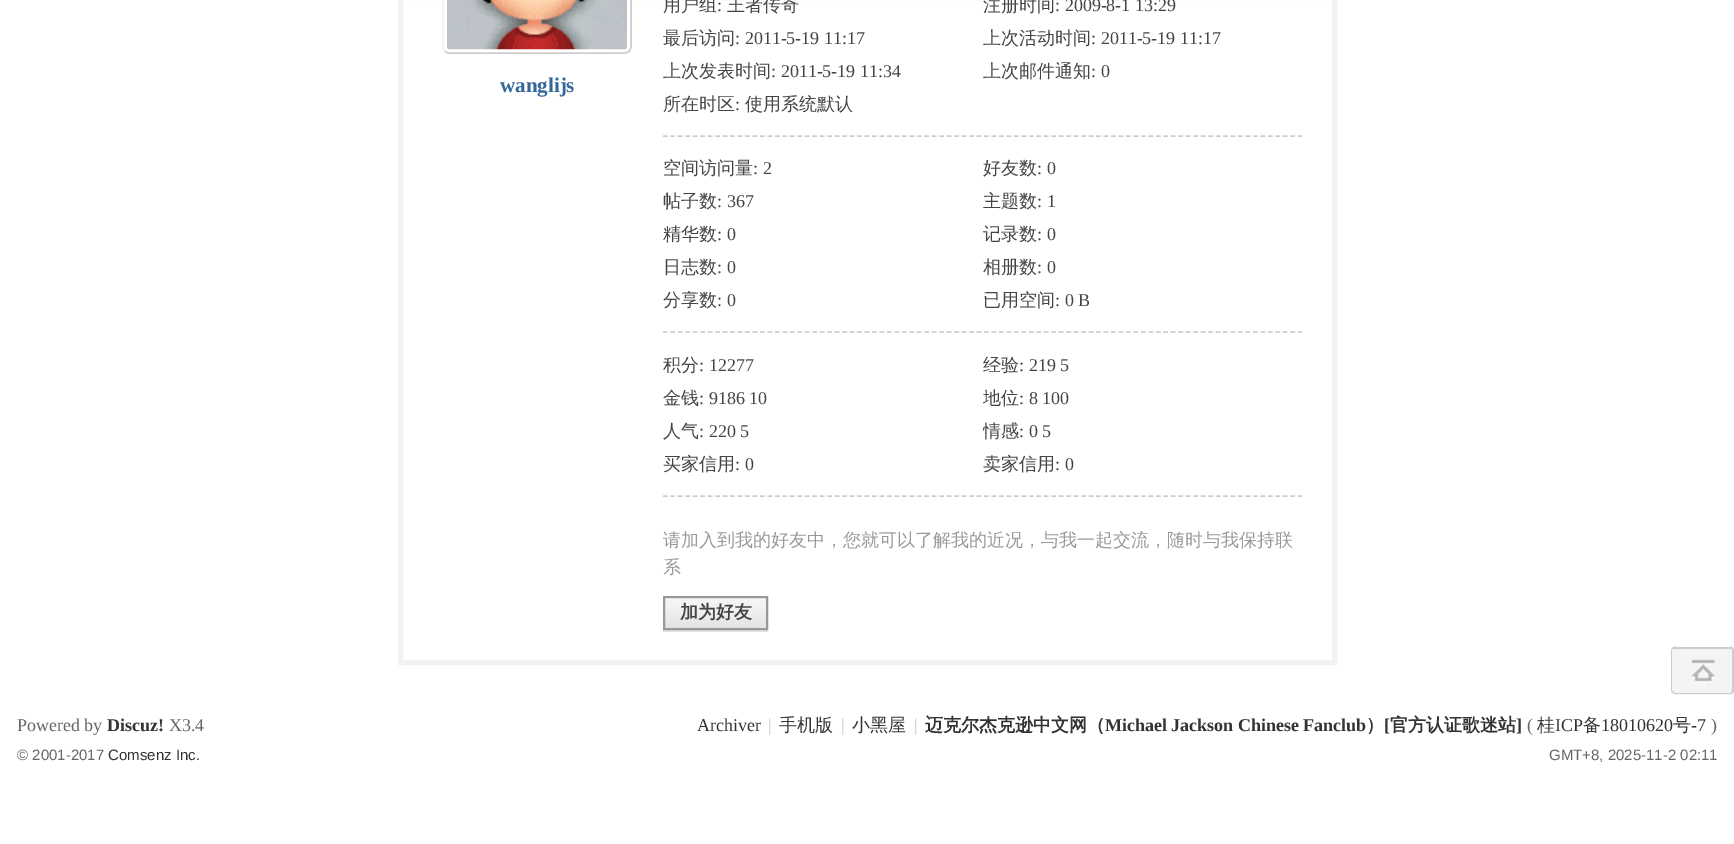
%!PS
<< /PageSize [1734 844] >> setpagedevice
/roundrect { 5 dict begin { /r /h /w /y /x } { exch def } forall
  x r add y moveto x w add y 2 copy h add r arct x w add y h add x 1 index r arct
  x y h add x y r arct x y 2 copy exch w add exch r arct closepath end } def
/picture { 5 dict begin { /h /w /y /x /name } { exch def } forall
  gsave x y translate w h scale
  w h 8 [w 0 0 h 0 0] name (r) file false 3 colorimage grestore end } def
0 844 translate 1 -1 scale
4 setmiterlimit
1 setgray
0 0 1734 844 rectfill
0.949 setgray
5 setlinewidth
400.5 -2.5 934 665 rectstroke
0.804 setgray
1.5 setlinewidth
newpath 629 -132.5 moveto 630 -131 631 -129.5 631 -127.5 curveto 631 46.5 lineto 631 48.5 630 50 629 51.5 curveto 627.5 52.5 626 53 624 53 curveto 450 53 lineto 448 53 446.5 52.5 445 51.5 curveto stroke
0.949 setgray
newpath 445 51.5 moveto 444 50 443 48.5 443 46.5 curveto 443 -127.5 lineto 443 -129.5 444 -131 445 -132.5 curveto 446.5 -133.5 448 -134 450 -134 curveto 624 -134 lineto 626 -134 627.5 -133.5 629 -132.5 curveto stroke
(img1.rgb) 447 0 180 50 picture
/LiberationSerif-Bold [21 0 0 -21 0 0] selectfont
0.2 0.4 0.6 setrgbcolor
500 92 moveto (wanglijs) show
0.804 setgray
[4.5 2.97] 0 setdash
newpath 663 136 moveto 1302 136 lineto stroke
/WenQuanYiZenHei-Medium [18 0 0 -18 0 0] selectfont
0.267 setgray
663 11 moveto (用户组) show
/LiberationSerif-Regular [18 0 0 -18 0 0] selectfont
717 11 moveto (:) show
/WenQuanYiZenHei-Medium [18 0 0 -18 0 0] selectfont
727 11 moveto (王者传奇) show
983 11 moveto (注册时间) show
/LiberationSerif-Regular [18 0 0 -18 0 0] selectfont
1055 11 moveto (: 2009-8-1 13:29) show
/WenQuanYiZenHei-Medium [18 0 0 -18 0 0] selectfont
663 44 moveto (最后访问) show
/LiberationSerif-Regular [18 0 0 -18 0 0] selectfont
735 44 moveto (: 2011-5-19 11:17) show
/WenQuanYiZenHei-Medium [18 0 0 -18 0 0] selectfont
983 44 moveto (上次活动时间) show
/LiberationSerif-Regular [18 0 0 -18 0 0] selectfont
1091 44 moveto (: 2011-5-19 11:17) show
/WenQuanYiZenHei-Medium [18 0 0 -18 0 0] selectfont
663 77 moveto (上次发表时间) show
/LiberationSerif-Regular [18 0 0 -18 0 0] selectfont
771 77 moveto (: 2011-5-19 11:34) show
/WenQuanYiZenHei-Medium [18 0 0 -18 0 0] selectfont
983 77 moveto (上次邮件通知) show
/LiberationSerif-Regular [18 0 0 -18 0 0] selectfont
1091 77 moveto (: 0) show
/WenQuanYiZenHei-Medium [18 0 0 -18 0 0] selectfont
663 110 moveto (所在时区) show
/LiberationSerif-Regular [18 0 0 -18 0 0] selectfont
735 110 moveto (:) show
/WenQuanYiZenHei-Medium [18 0 0 -18 0 0] selectfont
745 110 moveto (使用系统默认) show
0.804 setgray
newpath 663 332 moveto 1302 332 lineto stroke
0.267 setgray
663 174 moveto (空间访问量) show
/LiberationSerif-Regular [18 0 0 -18 0 0] selectfont
753 174 moveto (: 2) show
/WenQuanYiZenHei-Medium [18 0 0 -18 0 0] selectfont
983 174 moveto (好友数) show
/LiberationSerif-Regular [18 0 0 -18 0 0] selectfont
1037 174 moveto (: 0) show
/WenQuanYiZenHei-Medium [18 0 0 -18 0 0] selectfont
663 207 moveto (帖子数) show
/LiberationSerif-Regular [18 0 0 -18 0 0] selectfont
717 207 moveto (: 367) show
/WenQuanYiZenHei-Medium [18 0 0 -18 0 0] selectfont
983 207 moveto (主题数) show
/LiberationSerif-Regular [18 0 0 -18 0 0] selectfont
1037 207 moveto (: 1) show
/WenQuanYiZenHei-Medium [18 0 0 -18 0 0] selectfont
663 240 moveto (精华数) show
/LiberationSerif-Regular [18 0 0 -18 0 0] selectfont
717 240 moveto (: 0) show
/WenQuanYiZenHei-Medium [18 0 0 -18 0 0] selectfont
983 240 moveto (记录数) show
/LiberationSerif-Regular [18 0 0 -18 0 0] selectfont
1037 240 moveto (: 0) show
/WenQuanYiZenHei-Medium [18 0 0 -18 0 0] selectfont
663 273 moveto (日志数) show
/LiberationSerif-Regular [18 0 0 -18 0 0] selectfont
717 273 moveto (: 0) show
/WenQuanYiZenHei-Medium [18 0 0 -18 0 0] selectfont
983 273 moveto (相册数) show
/LiberationSerif-Regular [18 0 0 -18 0 0] selectfont
1037 273 moveto (: 0) show
/WenQuanYiZenHei-Medium [18 0 0 -18 0 0] selectfont
663 306 moveto (分享数) show
/LiberationSerif-Regular [18 0 0 -18 0 0] selectfont
717 306 moveto (: 0) show
/WenQuanYiZenHei-Medium [18 0 0 -18 0 0] selectfont
983 306 moveto (已用空间) show
/LiberationSerif-Regular [18 0 0 -18 0 0] selectfont
1055 306 moveto (: 0 B) show
0.804 setgray
newpath 663 496 moveto 1302 496 lineto stroke
/WenQuanYiZenHei-Medium [18 0 0 -18 0 0] selectfont
0.267 setgray
663 371 moveto (积分) show
/LiberationSerif-Regular [18 0 0 -18 0 0] selectfont
699 371 moveto (: 12277) show
gsave
983 351 319 27 rectclip
/WenQuanYiZenHei-Medium [18 0 0 -18 0 0] selectfont
983 371 moveto (经验) show
grestore
1019 371 moveto (: 219 5) show
/WenQuanYiZenHei-Medium [18 0 0 -18 0 0] selectfont
663 404 moveto (金钱) show
/LiberationSerif-Regular [18 0 0 -18 0 0] selectfont
699 404 moveto (: 9186 10) show
/WenQuanYiZenHei-Medium [18 0 0 -18 0 0] selectfont
983 404 moveto (地位) show
/LiberationSerif-Regular [18 0 0 -18 0 0] selectfont
1019 404 moveto (: 8 100) show
/WenQuanYiZenHei-Medium [18 0 0 -18 0 0] selectfont
663 437 moveto (人气) show
/LiberationSerif-Regular [18 0 0 -18 0 0] selectfont
699 437 moveto (: 220 5) show
gsave
983 417 319 27 rectclip
/WenQuanYiZenHei-Medium [18 0 0 -18 0 0] selectfont
983 437 moveto (情感) show
grestore
1019 437 moveto (: 0 5) show
/WenQuanYiZenHei-Medium [18 0 0 -18 0 0] selectfont
663 470 moveto (买家信用) show
/LiberationSerif-Regular [18 0 0 -18 0 0] selectfont
735 470 moveto (: 0) show
/WenQuanYiZenHei-Medium [18 0 0 -18 0 0] selectfont
983 470 moveto (卖家信用) show
/LiberationSerif-Regular [18 0 0 -18 0 0] selectfont
1055 470 moveto (: 0) show
/WenQuanYiZenHei-Medium [18 0 0 -18 0 0] selectfont
0.6 setgray
663 546 moveto (请加入到我的好友中，您就可以了解我的近况，与我一起交流，随时与我保持联) show
663 573 moveto (系) show
0.898 setgray
663 630 105 2 rectfill
(img2.rgb) 665 598 101 30 picture
0.6 setgray
2 setlinewidth
[] 0 setdash
664 597 103 32 rectstroke
/WenQuanYiZenHei-Bold [18 0 0 -18 0 0] selectfont
0.267 setgray
680 618 moveto (加为好友) show
0.957 setgray
1671 647 63 48 5 roundrect fill
0.804 setgray
newpath 1676 646 moveto 1730 646 lineto 1732 646 1734 649 1734 651 curveto 1734 690 lineto 1734 692 1732 694 1730 694 curveto 1676 694 lineto 1673 694 1671 692 1671 690 curveto 1671 651 lineto 1671 649 1673 646 1676 646 curveto closepath 1676 646 moveto 1730 646 lineto 1731 646 1732 649 1732 651 curveto 1732 690 lineto 1732 692 1731 693 1730 693 curveto 1676 693 lineto 1674 693 1672 692 1672 690 curveto 1672 651 lineto 1672 649 1674 646 1676 646 curveto closepath eofill
(img3.rgb) 1691 659 24 24 picture
1673 647 60 2 rectfill
/LiberationSerif-Regular [18 0 0 -18 0 0] selectfont
0.4 setgray
17 731 moveto (Powered by) show
/LiberationSerif-Bold [18 0 0 -18 0 0] selectfont
0.2 setgray
107 731 moveto (Discuz!) show
/LiberationSerif-Regular [18 0 0 -18 0 0] selectfont
0.4 setgray
169 731 moveto (X3.4) show
/LiberationSans-Regular [15 0 0 -15 0 0] selectfont
17 760 moveto (© 2001-2017) show
0.2 setgray
108 760 moveto (Comsenz Inc.) show
/LiberationSerif-Regular [18 0 0 -18 0 0] selectfont
697 731 moveto (Archiver) show
0.8 setgray
768 731 moveto (|) show
/WenQuanYiZenHei-Medium [18 0 0 -18 0 0] selectfont
0.2 setgray
779 731 moveto (手机版) show
/LiberationSerif-Regular [18 0 0 -18 0 0] selectfont
0.8 setgray
841 731 moveto (|) show
/WenQuanYiZenHei-Medium [18 0 0 -18 0 0] selectfont
0.2 setgray
852 731 moveto (小黑屋) show
/LiberationSerif-Regular [18 0 0 -18 0 0] selectfont
0.8 setgray
914 731 moveto (|) show
/WenQuanYiZenHei-Bold [18 0 0 -18 0 0] selectfont
0.2 setgray
925 731 moveto (迈克尔杰克逊中文网（) show
/LiberationSerif-Bold [18 0 0 -18 0 0] selectfont
1105 731 moveto (Michael Jackson Chinese Fanclub) show
/WenQuanYiZenHei-Bold [18 0 0 -18 0 0] selectfont
1366 731 moveto (）) show
/LiberationSerif-Bold [18 0 0 -18 0 0] selectfont
1384 731 moveto ([) show
/WenQuanYiZenHei-Bold [18 0 0 -18 0 0] selectfont
1390 731 moveto (官方认证歌迷站) show
/LiberationSerif-Bold [18 0 0 -18 0 0] selectfont
1516 731 moveto (]) show
/LiberationSerif-Regular [18 0 0 -18 0 0] selectfont
0.4 setgray
1527 731 moveto (\() show
/WenQuanYiZenHei-Medium [18 0 0 -18 0 0] selectfont
0.2 setgray
1537 731 moveto (桂) show
/LiberationSerif-Regular [18 0 0 -18 0 0] selectfont
1555 731 moveto (ICP) show
/WenQuanYiZenHei-Medium [18 0 0 -18 0 0] selectfont
1583 731 moveto (备) show
/LiberationSerif-Regular [18 0 0 -18 0 0] selectfont
1601 731 moveto (18010620) show
/WenQuanYiZenHei-Medium [18 0 0 -18 0 0] selectfont
1673 731 moveto (号) show
/LiberationSerif-Regular [18 0 0 -18 0 0] selectfont
1691 731 moveto (-7) show
0.4 setgray
1711 731 moveto (\)) show
/LiberationSans-Regular [15 0 0 -15 0 0] selectfont
1549 760 moveto (GMT+8, 2025-11-2 02:11) show
showpage
